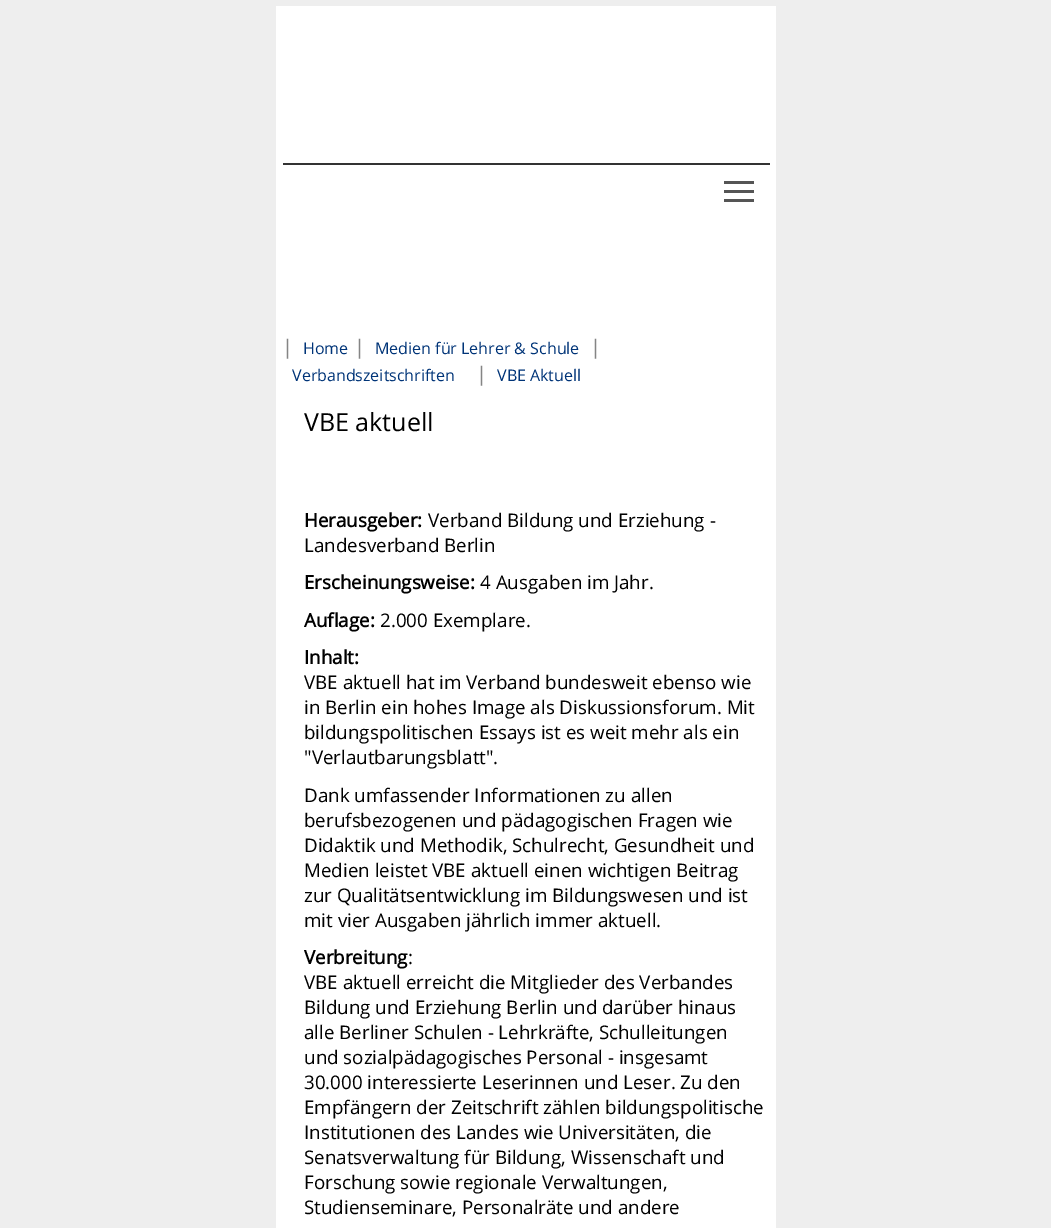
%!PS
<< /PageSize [1051 1228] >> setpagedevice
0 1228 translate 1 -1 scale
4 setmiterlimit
0.933 setgray
0 0 1051 1228 rectfill
1 setgray
276 6 500 1222 rectfill
0.2 setgray
283 163 487 2 rectfill
0.333 setgray
724 190 30 3 rectfill
724 181 30 3 rectfill
724 199 30 3 rectfill
/OpenSans-Regular [20 0 0 -20 0 0] selectfont
0.522 setgray
282 354 moveto (|) show
/OpenSans-Regular [16 0 0 -16 0 0] selectfont
0 0.204 0.471 setrgbcolor
303 354 moveto (Home) show
/OpenSans-Regular [20 0 0 -20 0 0] selectfont
0.522 setgray
354 354 moveto (|) show
/OpenSans-Regular [16 0 0 -16 0 0] selectfont
0 0.204 0.471 setrgbcolor
375 354 moveto (Medien für Lehrer & Schule) show
/OpenSans-Regular [20 0 0 -20 0 0] selectfont
0.522 setgray
590 354 moveto (|) show
/OpenSans-Regular [16 0 0 -16 0 0] selectfont
0 0.204 0.471 setrgbcolor
292 381 moveto (Verbandszeitschriften) show
/OpenSans-Regular [20 0 0 -20 0 0] selectfont
0.522 setgray
476 381 moveto (|) show
/OpenSans-Regular [16 0 0 -16 0 0] selectfont
0 0.204 0.471 setrgbcolor
497 381 moveto (VBE Aktuell) show
/OpenSans-Regular [25 0 0 -25 0 0] selectfont
0 setgray
304 431 moveto (VBE aktuell) show
/OpenSans-Bold [18.75 0 0 -18.75 0 0] selectfont
304 527 moveto (Herausgeber:) show
/OpenSans-Regular [18.75 0 0 -18.75 0 0] selectfont
428 527 moveto (Verband Bildung und Erziehung -) show
304 552 moveto (Landesverband Berlin) show
/OpenSans-Bold [18.75 0 0 -18.75 0 0] selectfont
304 589 moveto (Erscheinungsweise:) show
/OpenSans-Regular [18.75 0 0 -18.75 0 0] selectfont
480 589 moveto (4 Ausgaben im Jahr.) show
/OpenSans-Bold [18.75 0 0 -18.75 0 0] selectfont
304 627 moveto (Auflage:) show
/OpenSans-Regular [18.75 0 0 -18.75 0 0] selectfont
380 627 moveto (2.000 Exemplare.) show
/OpenSans-Bold [18.75 0 0 -18.75 0 0] selectfont
304 664 moveto (Inhalt:) show
/OpenSans-Regular [18.75 0 0 -18.75 0 0] selectfont
304 689 moveto (VBE aktuell hat im Verband bundesweit ebenso wie) show
304 714 moveto (in Berlin ein hohes Image als Diskussionsforum. Mit) show
304 739 moveto (bildungspolitischen Essays ist es weit mehr als ein) show
304 764 moveto ("Verlautbarungsblatt".) show
304 802 moveto (Dank umfassender Informationen zu allen) show
304 827 moveto (berufsbezogenen und pädagogischen Fragen wie) show
304 852 moveto (Didaktik und Methodik, Schulrecht, Gesundheit und) show
304 877 moveto (Medien leistet VBE aktuell einen wichtigen Beitrag) show
304 902 moveto (zur Qualitätsentwicklung im Bildungswesen und ist) show
304 927 moveto (mit vier Ausgaben jährlich immer aktuell.) show
/OpenSans-Bold [18.75 0 0 -18.75 0 0] selectfont
304 964 moveto (Verbreitung) show
/OpenSans-Regular [18.75 0 0 -18.75 0 0] selectfont
408 964 moveto (:) show
304 989 moveto (VBE aktuell erreicht die Mitglieder des Verbandes) show
304 1014 moveto (Bildung und Erziehung Berlin und darüber hinaus) show
304 1039 moveto (alle Berliner Schulen - Lehrkräfte, Schulleitungen) show
304 1064 moveto (und sozialpädagogisches Personal - insgesamt) show
304 1089 moveto (30.000 interessierte Leserinnen und Leser. Zu den) show
304 1114 moveto (Empfängern der Zeitschrift zählen bildungspolitische) show
304 1139 moveto (Institutionen des Landes wie Universitäten, die) show
304 1164 moveto (Senatsverwaltung für Bildung, Wissenschaft und) show
304 1189 moveto (Forschung sowie regionale Verwaltungen,) show
304 1214 moveto (Studienseminare, Personalräte und andere) show
showpage
